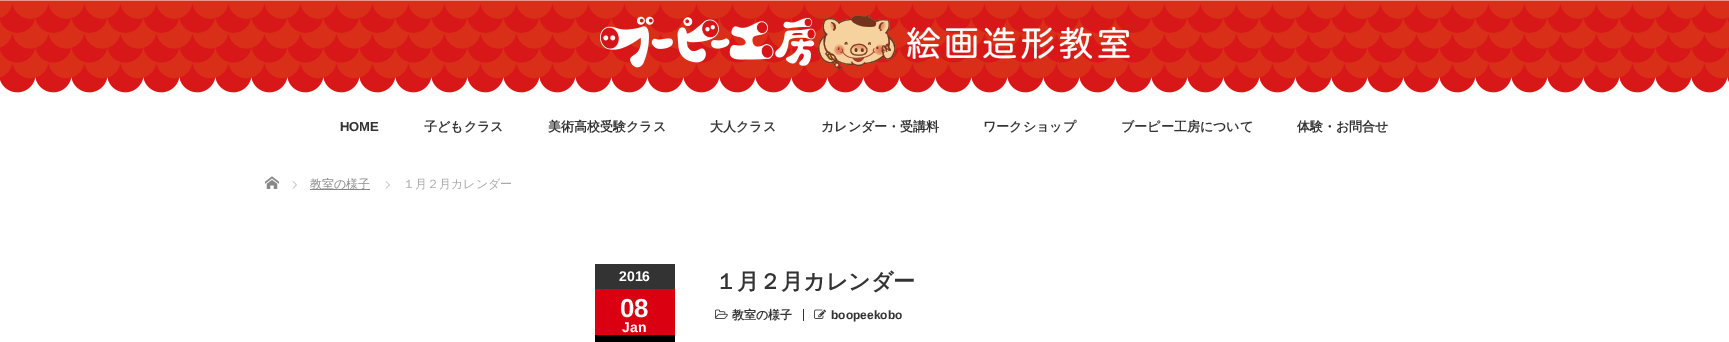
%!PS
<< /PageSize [1729 342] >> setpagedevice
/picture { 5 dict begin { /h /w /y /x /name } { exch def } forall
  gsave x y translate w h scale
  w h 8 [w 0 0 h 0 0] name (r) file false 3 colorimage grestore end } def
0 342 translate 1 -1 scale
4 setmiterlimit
1 setgray
0 0 1729 342 rectfill
(img1.rgb) 0 0 1729 93 picture
(img2.rgb) 600 15 530 54 picture
/LiberationSans-Bold [13 0 0 -13 0 0] selectfont
0.2 setgray
340 131 moveto (HOME) show
/WenQuanYiZenHei-Bold [13 0 0 -13 0 0] selectfont
424 131 moveto (子どもクラス) show
548 131 moveto (美術高校受験クラス) show
710 131 moveto (大人クラス) show
821 131 moveto (カレンダー・受講料) show
983 131 moveto (ワークショップ) show
1121 131 moveto (ブーピー工房について) show
1297 131 moveto (体験・お問合せ) show
(img3.rgb) 265 176 14 13 picture
(img4.rgb) 292 181 5 8 picture
0.533 setgray
310 189 60 1 rectfill
/WenQuanYiZenHei-Medium [12 0 0 -12 0 0] selectfont
310 188 moveto (教室の様子) show
(img4.rgb) 385 181 5 8 picture
0.667 setgray
403 188 moveto (１月２月カレンダー) show
0 setgray
595 335 80 7 rectfill
0.2 setgray
595 264 80 25 rectfill
/LiberationSans-Bold [14 0 0 -14 0 0] selectfont
1 setgray
619 281 moveto (2016) show
0.855 0 0.067 setrgbcolor
595 289 80 46 rectfill
/LiberationSans-Bold [26 0 0 -26 0 0] selectfont
1 setgray
620 317 moveto (08) show
/LiberationSans-Bold [14 0 0 -14 0 0] selectfont
622 332 moveto (Jan) show
/WenQuanYiZenHei-Bold [22 0 0 -22 0 0] selectfont
0.2 setgray
715 289 moveto (１月２月カレンダー) show
803 309 1 12 rectfill
(img5.rgb) 715 309 13 10 picture
/WenQuanYiZenHei-Bold [12 0 0 -12 0 0] selectfont
732 319 moveto (教室の様子) show
(img6.rgb) 814 309 12 10 picture
/LiberationSans-Bold [12 0 0 -12 0 0] selectfont
831 319 moveto (boopeekobo) show
showpage
